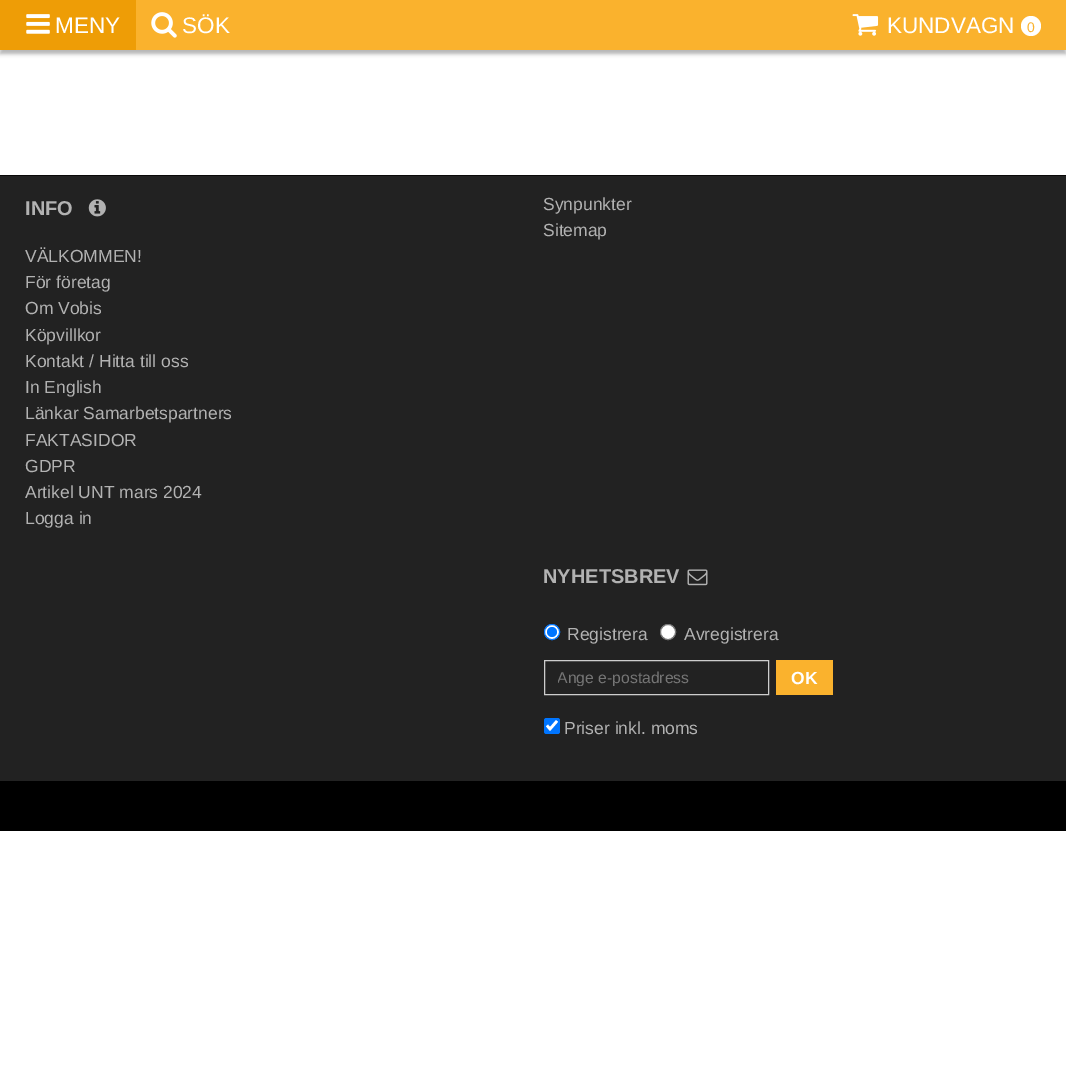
%!PS
<< /PageSize [1066 1066] /PageUsesTransparency true >> setpagedevice
/alpha { dup .setfillconstantalpha .setstrokeconstantalpha } def
/roundrect { 5 dict begin { /r /h /w /y /x } { exch def } forall
  x r add y moveto x w add y 2 copy h add r arct x w add y h add x 1 index r arct
  x y h add x y r arct x y 2 copy exch w add exch r arct closepath end } def
/shadow { 12 dict begin { /a /b /q /h /w /y /x } { exch def } forall gsave /was 0 def
  9 -2 -9 { dup b mul 4 div /e exch def 1 sub .425 mul 2.718 exch exp 1 add a .99 .min exch div /now exch def
    1 1 now sub 1 was sub div sub alpha /was now def
    w h .min e 2 mul add 0 gt { x e sub y e sub w e 2 mul add h e 2 mul add
      q e add b .6 mul add w h .min 2 div e add .min 0 .max roundrect fill } if } for grestore end } def
/picture { 5 dict begin { /h /w /y /x /name } { exch def } forall
  gsave x y translate w h scale
  w h 8 [w 0 0 h 0 0] name (r) file false 3 colorimage grestore end } def
0 .pushpdf14devicefilter
0 1066 translate 1 -1 scale
4 setmiterlimit
1 setgray
0 0 1066 1066 rectfill
0 setgray
0 4 1066 50 0 2 0.3 shadow
0.98 0.698 0.176 setrgbcolor
136 0 930 50 rectfill
0.933 0.616 0.024 setrgbcolor
0 0 136 50 rectfill
(img1.rgb) 26 14 24 20 picture
/LiberationSans-Regular [22.5 0 0 -22.5 0 0] selectfont
1 setgray
55 33 moveto (MENY) show
(img2.rgb) 151 12 26 26 picture
182 33 moveto (SÖK) show
(img3.rgb) 852 14 27 22 picture
887 33 moveto (KUNDVAGN) show
newpath 1031 26 10 0 360 arc closepath fill
/LiberationSans-Regular [14 0 0 -14 0 0] selectfont
0.98 0.698 0.176 setrgbcolor
1027 32 moveto (0) show
0.133 setgray
0 176 1066 605 rectfill
0.035 0.031 0.031 setrgbcolor
0 175 1066 1 rectfill
/LiberationSans-Bold [20 0 0 -20 0 0] selectfont
0.698 setgray
25 215 moveto (INFO) show
(img4.rgb) 88 199 18 18 picture
/LiberationSans-Regular [17.5 0 0 -17.5 0 0] selectfont
25 262 moveto (VÄLKOMMEN!) show
25 288 moveto (För företag) show
25 314 moveto (Om Vobis) show
25 341 moveto (Köpvillkor) show
25 367 moveto (Kontakt / Hitta till oss) show
25 393 moveto (In English) show
25 419 moveto (Länkar Samarbetspartners) show
25 446 moveto (FAKTASIDOR) show
25 472 moveto (GDPR) show
25 498 moveto (Artikel UNT mars 2024) show
25 524 moveto (Logga in) show
543 210 moveto (Synpunkter) show
543 236 moveto (Sitemap) show
/LiberationSans-Bold [20 0 0 -20 0 0] selectfont
543 583 moveto (NYHETSBREV) show
(img5.rgb) 687 569 21 17 picture
1 setgray
newpath 552 632 7.5 0 360 arc closepath gsave fill grestore
0 0.459 1 setrgbcolor
stroke
newpath 552 632 5 0 360 arc closepath fill
/LiberationSans-Regular [17.5 0 0 -17.5 0 0] selectfont
0.698 setgray
567 640 moveto (Registrera) show
1 setgray
newpath 668 632 7.5 0 360 arc closepath gsave fill grestore
0.463 setgray
stroke
0.698 setgray
684 640 moveto (Avregistrera) show
0.804 setgray
544.5 660.5 224 34 rectstroke
gsave
558 669 203 17 rectclip
/LiberationSans-Regular [15.75 0 0 -15.75 0 0] selectfont
0.459 setgray
557 683 moveto (Ange e-postadress) show
grestore
0.98 0.698 0.176 setrgbcolor
776 660 57 35 rectfill
/LiberationSans-Bold [17.5 0 0 -17.5 0 0] selectfont
1 setgray
791 684 moveto (OK) show
0 0.459 1 setrgbcolor
544 718 16 16 2.5 roundrect fill
1 setgray
2.6 setlinewidth
newpath 547 725.5 moveto 550 729 lineto 557 721 lineto stroke
/LiberationSans-Regular [17.5 0 0 -17.5 0 0] selectfont
0.698 setgray
564 734 moveto (Priser inkl. moms) show
0 setgray
0 781 1066 50 rectfill
.poppdf14devicefilter showpage
